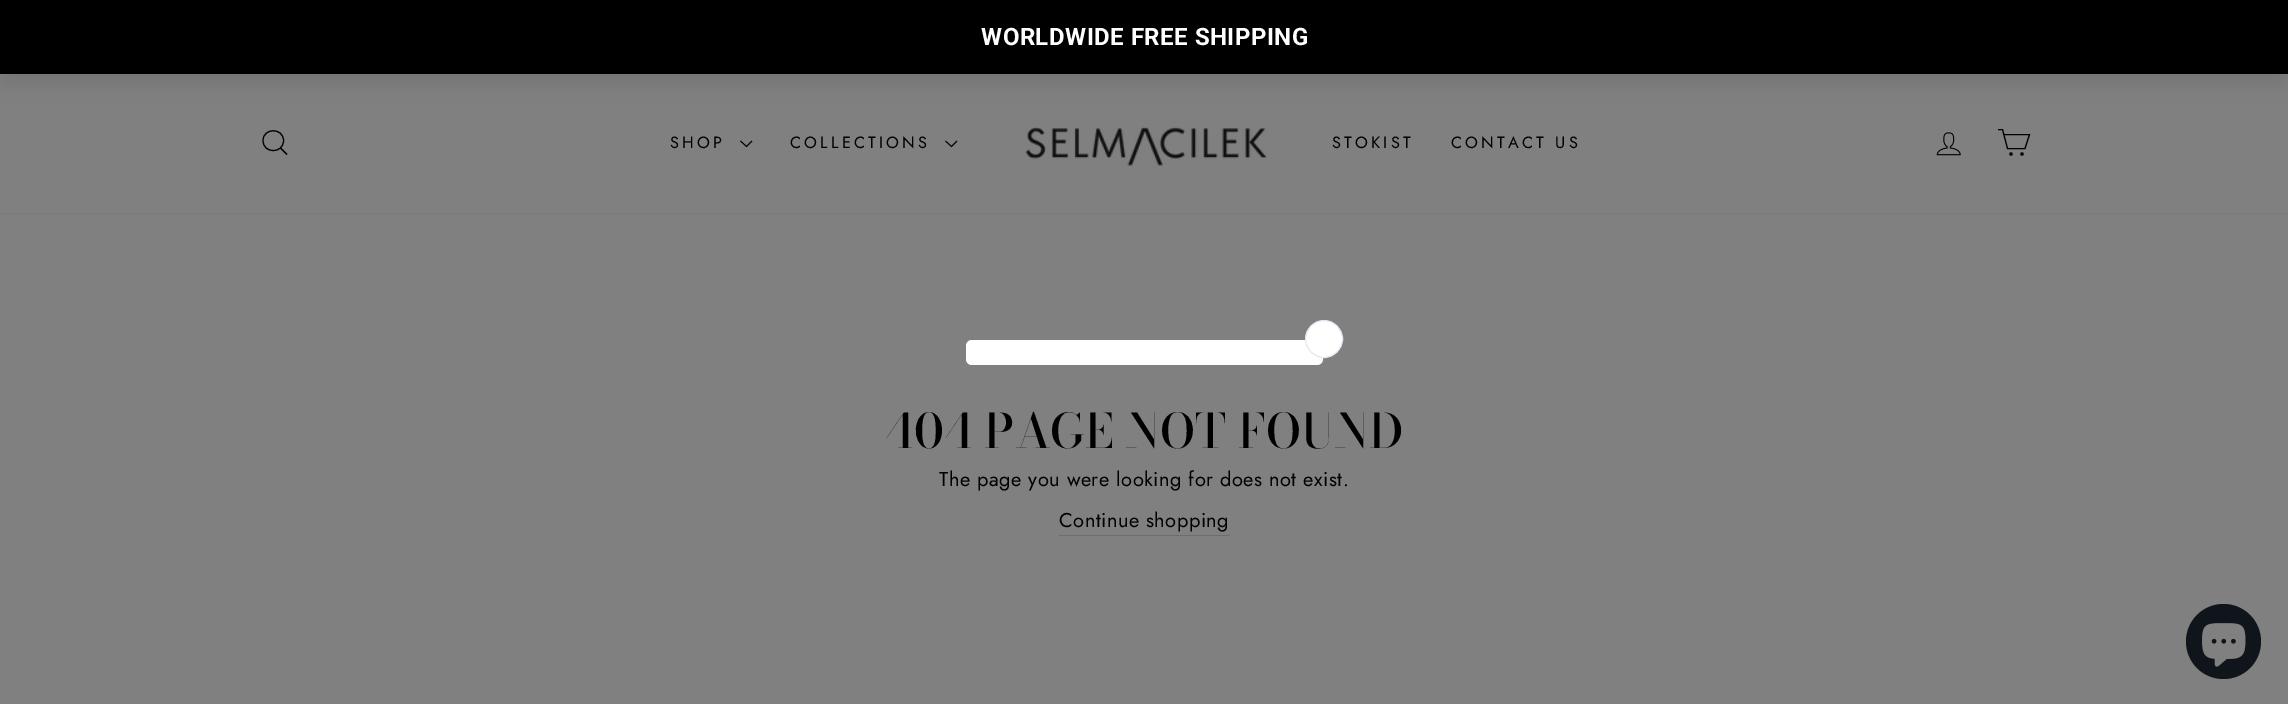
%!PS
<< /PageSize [2288 704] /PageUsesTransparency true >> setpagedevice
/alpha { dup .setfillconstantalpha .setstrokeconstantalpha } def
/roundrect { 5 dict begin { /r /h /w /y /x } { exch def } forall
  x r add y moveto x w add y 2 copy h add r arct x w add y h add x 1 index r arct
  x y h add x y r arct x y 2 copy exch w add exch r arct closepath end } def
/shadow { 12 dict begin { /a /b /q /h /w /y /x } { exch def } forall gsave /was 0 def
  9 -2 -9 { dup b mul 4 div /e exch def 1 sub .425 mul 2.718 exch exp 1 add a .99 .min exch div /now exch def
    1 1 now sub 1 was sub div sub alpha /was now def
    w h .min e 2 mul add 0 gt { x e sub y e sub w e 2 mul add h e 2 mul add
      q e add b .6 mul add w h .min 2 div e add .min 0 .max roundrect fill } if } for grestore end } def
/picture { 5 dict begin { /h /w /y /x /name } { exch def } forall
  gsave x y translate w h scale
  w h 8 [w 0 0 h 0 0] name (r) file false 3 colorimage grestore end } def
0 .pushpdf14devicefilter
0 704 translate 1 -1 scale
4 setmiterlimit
0.502 setgray
0 0 2288 704 rectfill
0 setgray
0 74 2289 139 0 0.5 0.2 shadow
0.502 setgray
0 74 2288 139 rectfill
0 setgray
4 16 2281 67 0 9.5 0.1 shadow
0 0 2288 74 rectfill
/Roboto-Bold [24 0 0 -24 0 0] selectfont
1 setgray
981 45 moveto 0.5 0 (WORLDWIDE FREE SHIPPING) ashow
966 340 357 25 6 roundrect fill
newpath 1324 339 18.5 0 360 arc closepath gsave fill grestore
0.886 0.91 0.941 setrgbcolor
stroke
0 setgray
1.1 setlinewidth
newpath 283.5 140.5 moveto 283.5 154 263 154 263 140.5 curveto 263 127.5 283.5 127.5 283.5 140.5 curveto closepath 287 154.5 moveto 280.5 148 lineto stroke
/Jost-Regular [16.25 0 0 -16.25 0 0] selectfont
670 148 moveto 3.25 0 (SHOP) ashow
0.9 setlinewidth
newpath 740.5 141 moveto 746.5 146.5 lineto 752 141 lineto stroke
790 148 moveto 3.25 0 (COLLECTIONS) ashow
newpath 945.5 141 moveto 951.5 146.5 lineto 957 141 lineto stroke
(img1.rgb) 1026 127 241 39 picture
1332 148 moveto 3.25 0 (STOKIST) ashow
1451 148 moveto 3.25 0 (CONTACT US) ashow
(img2.rgb) 1936 132 25 24 picture
1.1 setlinewidth
newpath 2004 134.5 moveto 2029.5 134.5 lineto 2025 148.5 lineto 2007.5 148.5 lineto 2002.5 129.5 lineto 1998 129.5 lineto stroke
newpath 2011 154 1.1 0 360 arc closepath stroke
newpath 2022 154 1.1 0 360 arc closepath stroke
/BodoniModa-Medium [47.5 0 0 -47.5 0 0] selectfont
885 448 moveto (404 PAGE NOT FOUND) show
/Jost-Regular [20 0 0 -20 0 0] selectfont
939 486 moveto 0.5 0 (The page you were looking for does not exist.) ashow
0.427 setgray
1059 535 171 1 rectfill
0 setgray
1059 527 moveto 0.5 0 (Continue shopping) ashow
0.063 0.082 0.106 setrgbcolor
newpath 2223.5 641.5 37.5 0 360 arc closepath fill
(img3.rgb) 2202 623 44 44 picture
.poppdf14devicefilter showpage
